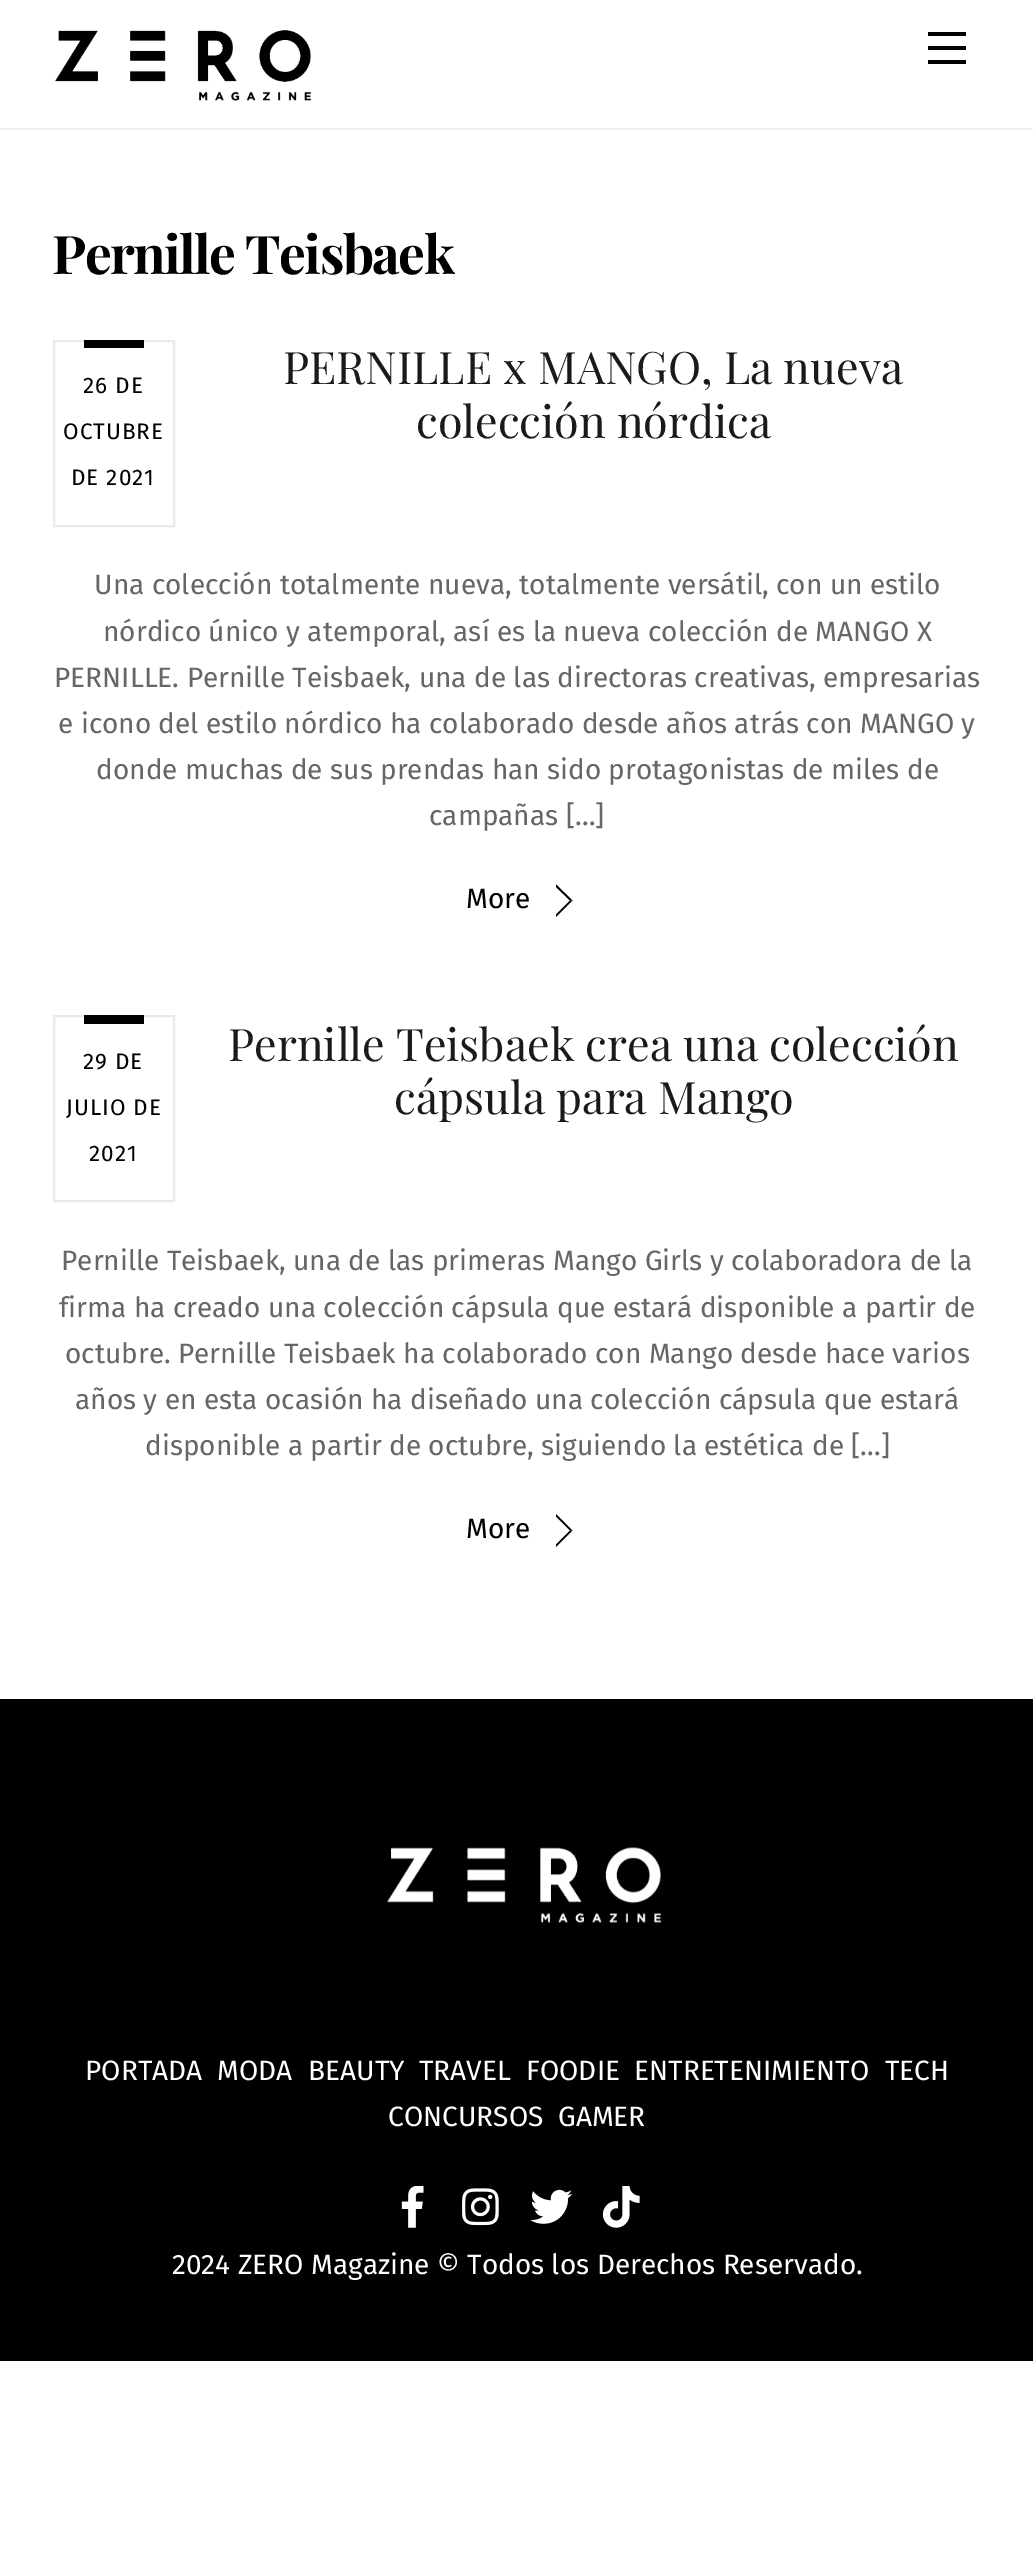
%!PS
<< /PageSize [1033 2571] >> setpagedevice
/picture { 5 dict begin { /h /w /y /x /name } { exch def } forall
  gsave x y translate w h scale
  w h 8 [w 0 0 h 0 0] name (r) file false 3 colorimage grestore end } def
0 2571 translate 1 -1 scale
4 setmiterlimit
1 setgray
0 0 1033 2571 rectfill
0.949 setgray
0 128 1033 2 rectfill
(img1.rgb) 55 30 256 71 picture
0 setgray
928 60 38 4 rectfill
928 32 38 4 rectfill
928 46 38 4 rectfill
/PlayfairDisplay-Bold [53.25 0 0 -53.25 0 0] selectfont
52 274 moveto -1.6 0 (Pernille Teisbaek) ashow
0.914 setgray
2 setlinewidth
54 341 120 185 rectstroke
0 setgray
84 340 60 8 rectfill
/FiraSans-Regular [22.5 0 0 -22.5 0 0] selectfont
83 393 moveto 1 0 (26 DE) ashow
63 439 moveto 1 0 (OCTUBRE) ashow
71 485 moveto 1 0 (DE 2021) ashow
/PlayfairDisplay-Regular [44.75 0 0 -44.75 0 0] selectfont
0.102 setgray
283 384 moveto (PERNILLE x MANGO, La nueva) show
416 438 moveto (colección nórdica) show
/FiraSans-Regular [28 0 0 -28 0 0] selectfont
0.4 setgray
94 594 moveto (Una colección totalmente nueva, totalmente versátil, con un estilo) show
103 641 moveto (nórdico único y atemporal, así es la nueva colección de MANGO X) show
54 687 moveto (PERNILLE. Pernille Teisbaek, una de las directoras creativas, empresarias) show
58 733 moveto (e icono del estilo nórdico ha colaborado desde años atrás con MANGO y) show
96 779 moveto (donde muchas de sus prendas han sido protagonistas de miles de) show
429 825 moveto (campañas […]) show
0 setgray
466 908 moveto (More) show
newpath 556 884.5 moveto 572.5 900.5 lineto 570 900.5 lineto 556 887 lineto closepath fill
newpath 572.5 900.5 moveto 556 917 lineto 556 914.5 lineto 570 900.5 lineto closepath fill
0.914 setgray
54 1016 120 185 rectstroke
0 setgray
84 1015 60 9 rectfill
/FiraSans-Regular [22.5 0 0 -22.5 0 0] selectfont
83 1069 moveto 1 0 (29 DE) ashow
66 1115 moveto 1 0 (JULIO DE) ashow
89 1161 moveto 1 0 (2021) ashow
/PlayfairDisplay-Regular [44.75 0 0 -44.75 0 0] selectfont
0.102 setgray
228 1061 moveto (Pernille Teisbaek crea una colección) show
394 1114 moveto (cápsula para Mango) show
/FiraSans-Regular [28 0 0 -28 0 0] selectfont
0.4 setgray
61 1270 moveto (Pernille Teisbaek, una de las primeras Mango Girls y colaboradora de la) show
59 1317 moveto (firma ha creado una colección cápsula que estará disponible a partir de) show
65 1363 moveto (octubre. Pernille Teisbaek ha colaborado con Mango desde hace varios) show
75 1409 moveto (años y en esta ocasión ha diseñado una colección cápsula que estará) show
145 1455 moveto (disponible a partir de octubre, siguiendo la estética de […]) show
0 setgray
466 1538 moveto (More) show
newpath 556 1514 moveto 572.5 1530.5 lineto 570 1530.5 lineto 556 1516.5 lineto closepath fill
newpath 572.5 1530.5 moveto 556 1547 lineto 556 1544.5 lineto 570 1530.5 lineto closepath fill
0 1699 1033 662 rectfill
(img2.rgb) 387 1847 275 76 picture
1 setgray
85 2080 moveto (PORTADA) show
217 2080 moveto (MODA) show
308 2080 moveto (BEAUTY) show
419 2080 moveto (TRAVEL) show
526 2080 moveto (FOODIE) show
634 2080 moveto (ENTRETENIMIENTO) show
885 2080 moveto (TECH) show
388 2126 moveto (CONCURSOS) show
558 2126 moveto (GAMER) show
(img3.rgb) 401 2186 23 42 picture
(img4.rgb) 462 2188 37 38 picture
(img5.rgb) 530 2189 42 35 picture
(img6.rgb) 602 2186 38 42 picture
172 2274 moveto (2024 ZERO Magazine © Todos los Derechos Reservado.) show
showpage
